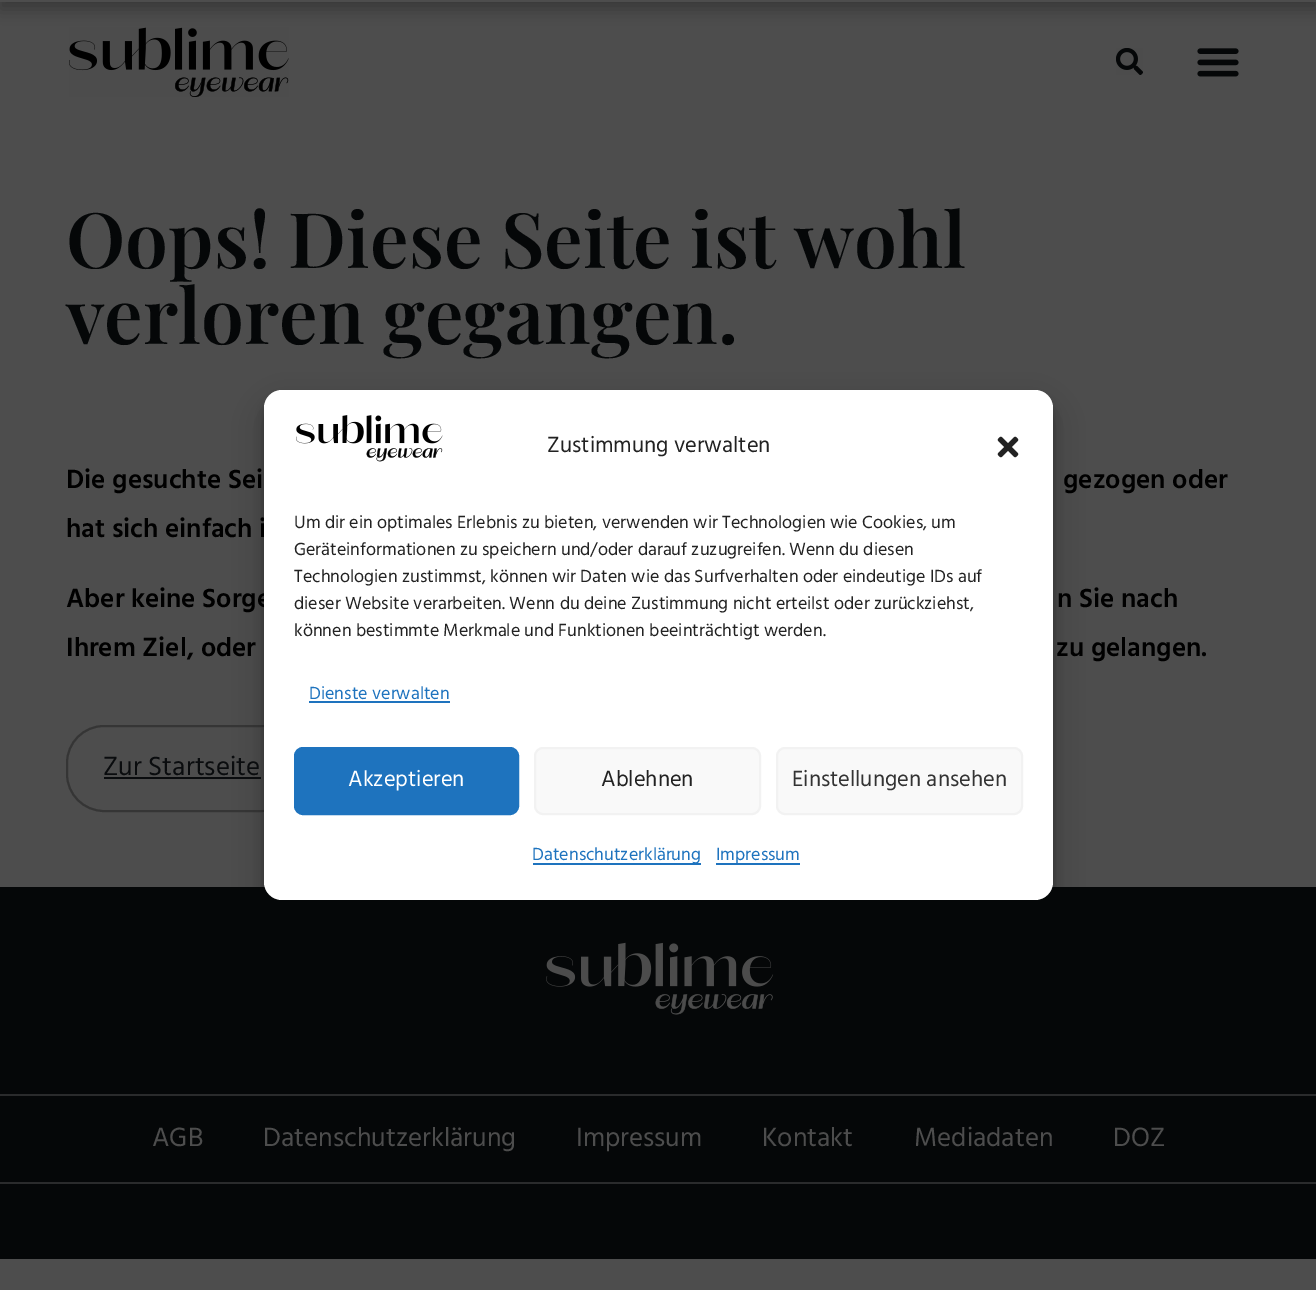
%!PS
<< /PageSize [1316 1290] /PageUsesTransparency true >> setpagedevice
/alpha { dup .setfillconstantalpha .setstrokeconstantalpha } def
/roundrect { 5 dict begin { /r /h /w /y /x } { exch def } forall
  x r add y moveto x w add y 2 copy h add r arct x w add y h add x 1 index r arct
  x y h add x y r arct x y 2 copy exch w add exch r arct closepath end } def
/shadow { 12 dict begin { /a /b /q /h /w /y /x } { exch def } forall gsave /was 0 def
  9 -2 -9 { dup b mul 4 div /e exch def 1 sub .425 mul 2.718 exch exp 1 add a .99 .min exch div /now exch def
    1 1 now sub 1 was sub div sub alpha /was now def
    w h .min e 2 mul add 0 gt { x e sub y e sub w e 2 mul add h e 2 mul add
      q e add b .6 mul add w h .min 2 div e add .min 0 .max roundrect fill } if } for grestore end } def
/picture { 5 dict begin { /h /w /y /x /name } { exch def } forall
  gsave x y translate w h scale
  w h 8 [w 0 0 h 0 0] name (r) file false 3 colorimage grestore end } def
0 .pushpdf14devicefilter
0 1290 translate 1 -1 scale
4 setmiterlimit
0.302 setgray
0 0 1316 1290 rectfill
(img1.rgb) 69 27 220 70 picture
0 setgray
0 -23 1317 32 0 7.5 0.27 shadow
0.302 setgray
0 0 1316 2 rectfill
(img2.rgb) 1116 48 27 27 picture
(img3.rgb) 1197 48 42 29 picture
/PlayfairDisplay-SemiBold [76.6 0 0 -76.6 0 0] selectfont
0.02 0.027 0.031 setrgbcolor
66 268 moveto (Oops! Diese Seite ist wohl) show
66 344 moveto (verloren gegangen.) show
/HindMadurai-SemiBold [27 0 0 -27 0 0] selectfont
0 setgray
66 488 moveto (Die gesuchte Sei) show
1063 488 moveto (gezogen oder) show
66 537 moveto (hat sich einfach i) show
66 607 moveto (Aber keine Sorge) show
1057 607 moveto (n Sie nach) show
66 656 moveto (Ihrem Ziel, oder) show
1056 656 moveto (zu gelangen.) show
0.208 setgray
2 setlinewidth
67 726 231 85 37 roundrect stroke
/HindMadurai-Regular [27 0 0 -27 0 0] selectfont
0.039 0.047 0.055 setrgbcolor
103 775 moveto (Zur Startseite) show
104 777 157 2 rectfill
0.02 0.027 0.031 setrgbcolor
0 887 1316 207 rectfill
0 setgray
264 399 789 510 18 4.5 0.23 shadow
(img6.rgb) 546 942 228 73 picture
264 405 789 510 18 15 0.19 shadow
1 setgray
264 390 789 510 18 roundrect fill
(img4.rgb) 296 415 147 47 picture
/HindMadurai-Regular [22.5 0 0 -22.5 0 0] selectfont
0.133 setgray
547 452 moveto (Zustimmung verwalten) show
(img5.rgb) 997 436 22 22 picture
/HindMadurai-Regular [18 0 0 -18 0 0] selectfont
294 528 moveto (Um dir ein optimales Erlebnis zu bieten, verwenden wir Technologien wie Cookies, um) show
294 555 moveto (Geräteinformationen zu speichern und/oder darauf zuzugreifen. Wenn du diesen) show
294 582 moveto (Technologien zustimmst, können wir Daten wie das Surfverhalten oder eindeutige IDs auf) show
294 609 moveto (dieser Website verarbeiten. Wenn du deine Zustimmung nicht erteilst oder zurückziehst,) show
294 636 moveto (können bestimmte Merkmale und Funktionen beeinträchtigt werden.) show
0.118 0.451 0.745 setrgbcolor
309 699 moveto (Dienste verwalten) show
309 701 141 2 rectfill
295 748 223 66 8 roundrect gsave fill grestore
stroke
/HindMadurai-Regular [22.5 0 0 -22.5 0 0] selectfont
1 setgray
348 786 moveto (Akzeptieren) show
0.976 setgray
535 748 225 66 8 roundrect gsave fill grestore
0.949 setgray
stroke
0.133 setgray
601 786 moveto (Ablehnen) show
0.976 setgray
777 748 245 66 8 roundrect gsave fill grestore
0.949 setgray
stroke
0.2 setgray
792 786 moveto (Einstellungen ansehen) show
0.118 0.451 0.745 setrgbcolor
533 863 168 2 rectfill
/HindMadurai-Regular [18 0 0 -18 0 0] selectfont
532 860 moveto (Datenschutzerklärung) show
716 863 84 2 rectfill
716 860 moveto (Impressum) show
0.02 0.027 0.031 setrgbcolor
0 1096 1316 86 rectfill
0.165 0.169 0.173 setrgbcolor
0 1094 1316 2 rectfill
0 1182 1316 2 rectfill
/HindMadurai-Regular [27 0 0 -27 0 0] selectfont
0.302 setgray
152 1146 moveto (AGB) show
263 1146 moveto (Datenschutzerklärung) show
576 1146 moveto (Impressum) show
762 1146 moveto (Kontakt) show
914 1146 moveto (Mediadaten) show
1113 1146 moveto (DOZ) show
0.02 0.027 0.031 setrgbcolor
0 1184 1316 75 rectfill
.poppdf14devicefilter showpage
